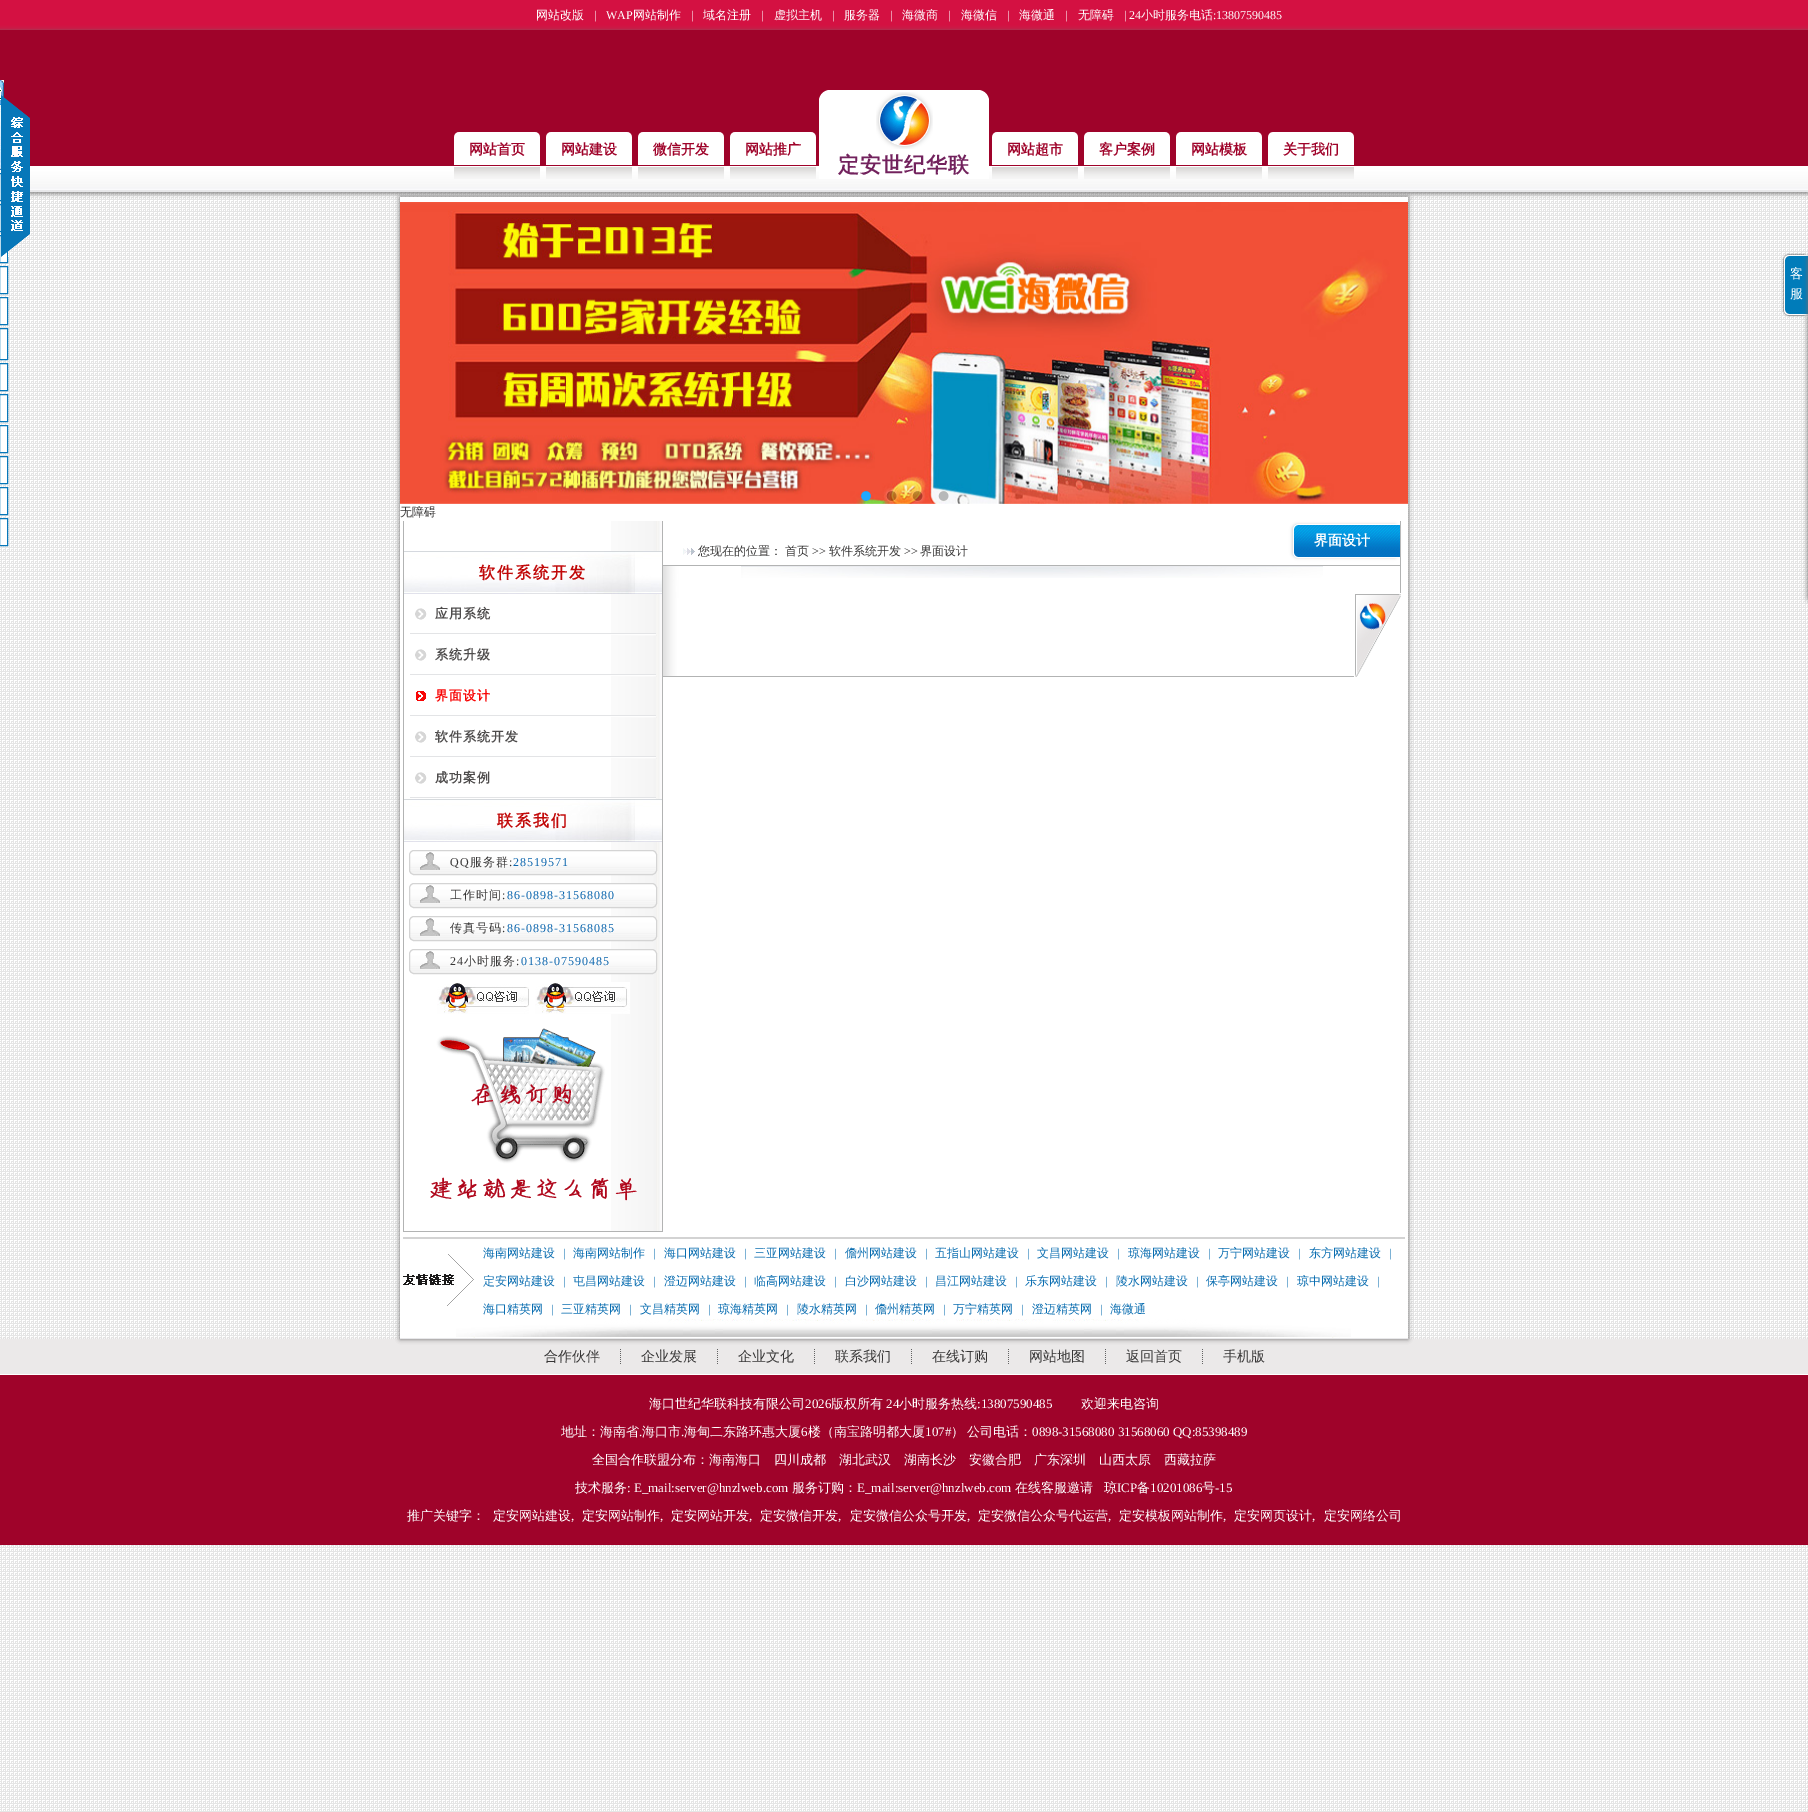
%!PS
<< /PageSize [1808 1812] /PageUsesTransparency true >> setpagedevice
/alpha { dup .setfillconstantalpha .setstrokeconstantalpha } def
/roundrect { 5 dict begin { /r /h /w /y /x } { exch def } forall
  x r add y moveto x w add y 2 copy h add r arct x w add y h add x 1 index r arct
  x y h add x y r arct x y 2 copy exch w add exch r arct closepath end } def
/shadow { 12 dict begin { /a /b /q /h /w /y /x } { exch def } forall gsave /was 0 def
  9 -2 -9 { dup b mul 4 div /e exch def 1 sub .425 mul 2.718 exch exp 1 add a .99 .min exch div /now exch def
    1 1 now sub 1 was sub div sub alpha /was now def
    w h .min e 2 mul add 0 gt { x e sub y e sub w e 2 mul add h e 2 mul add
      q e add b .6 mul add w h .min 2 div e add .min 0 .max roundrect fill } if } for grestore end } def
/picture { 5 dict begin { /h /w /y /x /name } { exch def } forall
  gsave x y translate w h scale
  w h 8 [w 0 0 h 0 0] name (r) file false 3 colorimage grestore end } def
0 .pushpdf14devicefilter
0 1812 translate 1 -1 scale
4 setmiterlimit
1 setgray
0 0 1808 1812 rectfill
(img1.rgb) 0 192 1808 1620 picture
0.831 0.067 0.259 setrgbcolor
0 0 1808 30 rectfill
/WenQuanYiZenHei-Medium [12 0 0 -12 0 0] selectfont
1 setgray
536 19 moveto (网站改版) show
/LiberationSerif-Regular [12 0 0 -12 0 0] selectfont
594 19 moveto (|) show
606 19 moveto (WAP) show
/WenQuanYiZenHei-Medium [12 0 0 -12 0 0] selectfont
633 19 moveto (网站制作) show
/LiberationSerif-Regular [12 0 0 -12 0 0] selectfont
691 19 moveto (|) show
/WenQuanYiZenHei-Medium [12 0 0 -12 0 0] selectfont
703 19 moveto (域名注册) show
/LiberationSerif-Regular [12 0 0 -12 0 0] selectfont
761 19 moveto (|) show
/WenQuanYiZenHei-Medium [12 0 0 -12 0 0] selectfont
774 19 moveto (虚拟主机) show
/LiberationSerif-Regular [12 0 0 -12 0 0] selectfont
832 19 moveto (|) show
/WenQuanYiZenHei-Medium [12 0 0 -12 0 0] selectfont
844 19 moveto (服务器) show
/LiberationSerif-Regular [12 0 0 -12 0 0] selectfont
890 19 moveto (|) show
/WenQuanYiZenHei-Medium [12 0 0 -12 0 0] selectfont
902 19 moveto (海微商) show
/LiberationSerif-Regular [12 0 0 -12 0 0] selectfont
948 19 moveto (|) show
/WenQuanYiZenHei-Medium [12 0 0 -12 0 0] selectfont
961 19 moveto (海微信) show
/LiberationSerif-Regular [12 0 0 -12 0 0] selectfont
1007 19 moveto (|) show
/WenQuanYiZenHei-Medium [12 0 0 -12 0 0] selectfont
1019 19 moveto (海微通) show
/LiberationSerif-Regular [12 0 0 -12 0 0] selectfont
1065 19 moveto (|) show
/WenQuanYiZenHei-Medium [12 0 0 -12 0 0] selectfont
1078 19 moveto (无障碍) show
/LiberationSerif-Regular [12 0 0 -12 0 0] selectfont
1124 19 moveto (| 24) show
/WenQuanYiZenHei-Medium [12 0 0 -12 0 0] selectfont
1141 19 moveto (小时服务电话) show
/LiberationSerif-Regular [12 0 0 -12 0 0] selectfont
1213 19 moveto (:13807590485) show
0.427 0.424 0.424 setrgbcolor
0 31 1808 162 0 2.5 1 shadow
0.624 0.012 0.165 setrgbcolor
0 30 1808 136 rectfill
(img2.rgb) 0 166 1808 24 picture
0.91 0.91 0.918 setrgbcolor
30 190 1778 2 rectfill
(img3.rgb) 454 132 86 47 picture
/WenQuanYiZenHei-Bold [14 0 0 -14 0 0] selectfont
0.624 0.012 0.165 setrgbcolor
469 154 moveto (网站首页) show
(img3.rgb) 546 132 86 47 picture
561 154 moveto (网站建设) show
(img3.rgb) 638 132 86 47 picture
653 154 moveto (微信开发) show
(img3.rgb) 730 132 86 47 picture
745 154 moveto (网站推广) show
(img3.rgb) 992 132 86 47 picture
1007 154 moveto (网站超市) show
(img3.rgb) 1084 132 86 47 picture
1099 154 moveto (客户案例) show
(img3.rgb) 1176 132 86 47 picture
1191 154 moveto (网站模板) show
(img4.rgb) 1268 132 86 47 picture
1283 154 moveto (关于我们) show
1 setgray
newpath 830 90 moveto 978 90 lineto 984 90 989 95 989 101 curveto 989 179 lineto 819 179 lineto 819 101 lineto 819 95 824 90 830 90 curveto closepath fill
(img5.rgb) 876 92 57 57 picture
/WenQuanYiZenHei-Bold [21 0 0 -21 0 0] selectfont
0.447 0.133 0.365 setrgbcolor
838 172 moveto 1 0 (定安世纪华联) ashow
0.831 0.82 0.82 setrgbcolor
0 1340 1808 36 0 1.5 1 shadow
0.624 0.012 0.165 setrgbcolor
0 1375 1808 170 rectfill
(img6.rgb) 0 80 4 90 picture
1 setgray
0 173 1 28 rectfill
0.027 0.467 0.725 setrgbcolor
-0.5 173.5 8 27 rectstroke
1 setgray
0 204 1 28 rectfill
0.027 0.467 0.725 setrgbcolor
-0.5 204.5 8 27 rectstroke
1 setgray
newpath -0.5 235.5 moveto 7.5 235.5 lineto 7.5 262.5 lineto -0.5 262.5 lineto closepath gsave fill grestore
0.027 0.467 0.725 setrgbcolor
stroke
1 setgray
newpath -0.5 266.5 moveto 7.5 266.5 lineto 7.5 293.5 lineto -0.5 293.5 lineto closepath gsave fill grestore
0.027 0.467 0.725 setrgbcolor
stroke
1 setgray
newpath -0.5 297.5 moveto 7.5 297.5 lineto 7.5 324.5 lineto -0.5 324.5 lineto closepath gsave fill grestore
0.027 0.467 0.725 setrgbcolor
stroke
1 setgray
newpath -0.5 328.5 moveto 7.5 328.5 lineto 7.5 359.5 lineto -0.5 359.5 lineto closepath gsave fill grestore
0.027 0.467 0.725 setrgbcolor
stroke
1 setgray
newpath -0.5 363.5 moveto 7.5 363.5 lineto 7.5 390.5 lineto -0.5 390.5 lineto closepath gsave fill grestore
0.027 0.467 0.725 setrgbcolor
stroke
1 setgray
newpath -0.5 394.5 moveto 7.5 394.5 lineto 7.5 421.5 lineto -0.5 421.5 lineto closepath gsave fill grestore
0.027 0.467 0.725 setrgbcolor
stroke
1 setgray
newpath -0.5 425.5 moveto 7.5 425.5 lineto 7.5 452.5 lineto -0.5 452.5 lineto closepath gsave fill grestore
0.027 0.467 0.725 setrgbcolor
stroke
1 setgray
newpath -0.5 456.5 moveto 7.5 456.5 lineto 7.5 483.5 lineto -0.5 483.5 lineto closepath gsave fill grestore
0.027 0.467 0.725 setrgbcolor
stroke
1 setgray
newpath -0.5 487.5 moveto 7.5 487.5 lineto 7.5 514.5 lineto -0.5 514.5 lineto closepath gsave fill grestore
0.027 0.467 0.725 setrgbcolor
stroke
1 setgray
newpath -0.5 518.5 moveto 7.5 518.5 lineto 7.5 545.5 lineto -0.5 545.5 lineto closepath gsave fill grestore
0.027 0.467 0.725 setrgbcolor
stroke
(img7.rgb) 1 95 29 162 picture
0 setgray
1784 255 24 60 5 1 1 shadow
0 0.486 0.729 setrgbcolor
newpath 1789 256 moveto 1808 256 lineto 1808 314 lineto 1789 314 lineto 1787 314 1785 312 1785 310 curveto 1785 260 lineto 1785 258 1787 256 1789 256 curveto closepath fill
1 setgray
newpath 1789 255 moveto 1808 255 lineto 1808 315 lineto 1789 315 lineto 1786 315 1784 313 1784 310 curveto 1784 260 lineto 1784 257 1786 255 1789 255 curveto closepath 1789 256 moveto 1808 256 lineto 1808 314 lineto 1789 314 lineto 1787 314 1785 312 1785 310 curveto 1785 260 lineto 1785 258 1787 256 1789 256 curveto closepath eofill
/WenQuanYiZenHei-Medium [13 0 0 -13 0 0] selectfont
1790 278 moveto (客) show
1790 298 moveto (服) show
0.427 0.424 0.424 setrgbcolor
1808 255 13 347 5 2.5 1 shadow
1 setgray
649 1408 moveto (海口世纪华联科技有限公司) show
/LiberationSerif-Regular [13 0 0 -13 0 0] selectfont
805 1408 moveto (2026) show
/WenQuanYiZenHei-Medium [13 0 0 -13 0 0] selectfont
831 1408 moveto (版权所有) show
/LiberationSerif-Regular [13 0 0 -13 0 0] selectfont
886 1408 moveto (24) show
/WenQuanYiZenHei-Medium [13 0 0 -13 0 0] selectfont
899 1408 moveto (小时服务热线) show
/LiberationSerif-Regular [13 0 0 -13 0 0] selectfont
977 1408 moveto (:13807590485) show
/WenQuanYiZenHei-Medium [13 0 0 -13 0 0] selectfont
1081 1408 moveto (欢迎来电咨询) show
561 1436 moveto (地址：海南省) show
/LiberationSerif-Regular [13 0 0 -13 0 0] selectfont
639 1436 moveto (.) show
/WenQuanYiZenHei-Medium [13 0 0 -13 0 0] selectfont
642 1436 moveto (海口市) show
/LiberationSerif-Regular [13 0 0 -13 0 0] selectfont
681 1436 moveto (.) show
/WenQuanYiZenHei-Medium [13 0 0 -13 0 0] selectfont
684 1436 moveto (海甸二东路环惠大厦) show
/LiberationSerif-Regular [13 0 0 -13 0 0] selectfont
801 1436 moveto (6) show
/WenQuanYiZenHei-Medium [13 0 0 -13 0 0] selectfont
808 1436 moveto (楼（南宝路明都大厦) show
/LiberationSerif-Regular [13 0 0 -13 0 0] selectfont
925 1436 moveto (107#) show
/WenQuanYiZenHei-Medium [13 0 0 -13 0 0] selectfont
951 1436 moveto (）) show
967 1436 moveto (公司电话：) show
/LiberationSerif-Regular [13 0 0 -13 0 0] selectfont
1032 1436 moveto (0898-31568080 31568060 QQ:85398489) show
/WenQuanYiZenHei-Medium [13 0 0 -13 0 0] selectfont
592 1464 moveto (全国合作联盟分布：海南海口　四川成都　湖北武汉　湖南长沙　安徽合肥　广东深圳　山西太原　西藏拉萨) show
575 1492 moveto (技术服务) show
/LiberationSerif-Regular [13 0 0 -13 0 0] selectfont
627 1492 moveto (: E_mail:server@hnzlweb.com) show
/WenQuanYiZenHei-Medium [13 0 0 -13 0 0] selectfont
792 1492 moveto (服务订购：) show
/LiberationSerif-Regular [13 0 0 -13 0 0] selectfont
857 1492 moveto (E_mail:server@hnzlweb.com) show
/WenQuanYiZenHei-Medium [13 0 0 -13 0 0] selectfont
1015 1492 moveto (在线客服邀请) show
1104 1492 moveto (琼) show
/LiberationSerif-Regular [13 0 0 -13 0 0] selectfont
1117 1492 moveto (ICP) show
/WenQuanYiZenHei-Medium [13 0 0 -13 0 0] selectfont
1137 1492 moveto (备) show
/LiberationSerif-Regular [13 0 0 -13 0 0] selectfont
1150 1492 moveto (10201086) show
/WenQuanYiZenHei-Medium [13 0 0 -13 0 0] selectfont
1202 1492 moveto (号) show
/LiberationSerif-Regular [13 0 0 -13 0 0] selectfont
1215 1492 moveto (-15) show
/WenQuanYiZenHei-Medium [13 0 0 -13 0 0] selectfont
407 1520 moveto (推广关键字：) show
493 1520 moveto (定安网站建设) show
/LiberationSerif-Regular [13 0 0 -13 0 0] selectfont
571 1520 moveto (,) show
/WenQuanYiZenHei-Medium [13 0 0 -13 0 0] selectfont
582 1520 moveto (定安网站制作) show
/LiberationSerif-Regular [13 0 0 -13 0 0] selectfont
660 1520 moveto (,) show
/WenQuanYiZenHei-Medium [13 0 0 -13 0 0] selectfont
671 1520 moveto (定安网站开发) show
/LiberationSerif-Regular [13 0 0 -13 0 0] selectfont
749 1520 moveto (,) show
/WenQuanYiZenHei-Medium [13 0 0 -13 0 0] selectfont
760 1520 moveto (定安微信开发) show
/LiberationSerif-Regular [13 0 0 -13 0 0] selectfont
838 1520 moveto (,) show
/WenQuanYiZenHei-Medium [13 0 0 -13 0 0] selectfont
850 1520 moveto (定安微信公众号开发) show
/LiberationSerif-Regular [13 0 0 -13 0 0] selectfont
967 1520 moveto (,) show
/WenQuanYiZenHei-Medium [13 0 0 -13 0 0] selectfont
978 1520 moveto (定安微信公众号代运营) show
/LiberationSerif-Regular [13 0 0 -13 0 0] selectfont
1108 1520 moveto (,) show
/WenQuanYiZenHei-Medium [13 0 0 -13 0 0] selectfont
1119 1520 moveto (定安模板网站制作) show
/LiberationSerif-Regular [13 0 0 -13 0 0] selectfont
1223 1520 moveto (,) show
/WenQuanYiZenHei-Medium [13 0 0 -13 0 0] selectfont
1234 1520 moveto (定安网页设计) show
/LiberationSerif-Regular [13 0 0 -13 0 0] selectfont
1312 1520 moveto (,) show
/WenQuanYiZenHei-Medium [13 0 0 -13 0 0] selectfont
1324 1520 moveto (定安网络公司) show
0.922 0.914 0.914 setrgbcolor
0 1339 1808 35 rectfill
0.427 0.424 0.424 setrgbcolor
400 197 1008 1142 0 2.5 1 shadow
1 setgray
400 197 1008 1141 rectfill
0.91 0.91 0.918 setrgbcolor
400 1338 1008 1 rectfill
(img8.rgb) 400 202 1008 302 picture
(img9.rgb) 861 491 10 10 picture
(img10.rgb) 884 488 15 16 picture
(img11.rgb) 910 488 15 16 picture
(img12.rgb) 938 488 11 13 picture
/WenQuanYiZenHei-Medium [12 0 0 -12 0 0] selectfont
0.212 0.208 0.208 setrgbcolor
400 516 moveto (无障碍) show
(img13.rgb) 663 566 16 110 picture
0.698 0.702 0.702 setrgbcolor
1400 521 1 72 rectfill
662 521 1 711 rectfill
662 676 692 1 rectfill
663 565 737 1 rectfill
0.847 0.843 0.843 setrgbcolor
1292 524 107 34 5 1.5 1 shadow
(img14.rgb) 1293 524 107 34 picture
1 setgray
newpath 1298 524 moveto 1400 524 lineto 1400 558 lineto 1298 558 lineto 1295 558 1293 556 1293 553 curveto 1293 529 lineto 1293 526 1295 524 1298 524 curveto closepath 1298 525 moveto 1400 525 lineto 1400 557 lineto 1298 557 lineto 1296 557 1294 555 1294 553 curveto 1294 529 lineto 1294 527 1296 525 1298 525 curveto closepath eofill
/WenQuanYiZenHei-Bold [14 0 0 -14 0 0] selectfont
1314 545 moveto (界面设计) show
(img15.rgb) 683 548 12 7 picture
/WenQuanYiZenHei-Medium [12 0 0 -12 0 0] selectfont
0.212 0.208 0.208 setrgbcolor
698 555 moveto (您现在的位置：) show
785 555 moveto (首页) show
/LiberationSerif-Regular [12 0 0 -12 0 0] selectfont
812 555 moveto (>>) show
/WenQuanYiZenHei-Medium [12 0 0 -12 0 0] selectfont
829 555 moveto (软件系统开发) show
/LiberationSerif-Regular [12 0 0 -12 0 0] selectfont
904 555 moveto (>>) show
/WenQuanYiZenHei-Medium [12 0 0 -12 0 0] selectfont
920 555 moveto (界面设计) show
(img16.rgb) 741 566 582 12 picture
(img17.rgb) 1355 594 46 83 picture
(img18.rgb) 1359 603 27 27 picture
(img19.rgb) 611 521 51 710 picture
0.698 0.702 0.702 setrgbcolor
403 1231 260 1 rectfill
403 521 1 711 rectfill
(img20.rgb) 404 551 258 43 picture
/WenQuanYiZenHei-Bold [16 0 0 -16 0 0] selectfont
0.757 0.035 0.035 setrgbcolor
479 578 moveto 2 0 (软件系统开发) ashow
gsave
newpath 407 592 moveto 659 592 lineto 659 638 lineto 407 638 lineto closepath 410 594 moveto 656 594 lineto 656 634 lineto 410 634 lineto closepath eoclip newpath
1 setgray
410 595 246 40 0 0.5 1 shadow
grestore
(img21.rgb) 415 608 12 12 picture
0.89 0.894 0.902 setrgbcolor
410 633 246 1 rectfill
/WenQuanYiZenHei-Bold [13 0 0 -13 0 0] selectfont
0.306 0.298 0.298 setrgbcolor
435 618 moveto 1 0 (应用系统) ashow
gsave
newpath 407 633 moveto 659 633 lineto 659 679 lineto 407 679 lineto closepath 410 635 moveto 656 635 lineto 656 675 lineto 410 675 lineto closepath eoclip newpath
1 setgray
410 636 246 40 0 0.5 1 shadow
grestore
(img21.rgb) 415 649 12 12 picture
0.89 0.894 0.902 setrgbcolor
410 674 246 1 rectfill
0.306 0.298 0.298 setrgbcolor
435 659 moveto 1 0 (系统升级) ashow
gsave
newpath 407 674 moveto 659 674 lineto 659 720 lineto 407 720 lineto closepath 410 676 moveto 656 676 lineto 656 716 lineto 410 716 lineto closepath eoclip newpath
1 setgray
410 677 246 40 0 0.5 1 shadow
grestore
(img22.rgb) 416 691 10 10 picture
0.89 0.894 0.902 setrgbcolor
410 715 246 1 rectfill
0.973 0.02 0.02 setrgbcolor
435 700 moveto 1 0 (界面设计) ashow
gsave
newpath 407 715 moveto 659 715 lineto 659 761 lineto 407 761 lineto closepath 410 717 moveto 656 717 lineto 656 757 lineto 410 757 lineto closepath eoclip newpath
1 setgray
410 718 246 40 0 0.5 1 shadow
grestore
(img21.rgb) 415 731 12 12 picture
0.89 0.894 0.902 setrgbcolor
410 756 246 1 rectfill
0.306 0.298 0.298 setrgbcolor
435 741 moveto 1 0 (软件系统开发) ashow
gsave
newpath 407 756 moveto 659 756 lineto 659 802 lineto 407 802 lineto closepath 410 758 moveto 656 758 lineto 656 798 lineto 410 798 lineto closepath eoclip newpath
1 setgray
410 759 246 40 0 0.5 1 shadow
grestore
(img21.rgb) 415 772 12 12 picture
0.89 0.894 0.902 setrgbcolor
410 797 246 1 rectfill
0.306 0.298 0.298 setrgbcolor
435 782 moveto 1 0 (成功案例) ashow
(img20.rgb) 404 799 258 43 picture
/WenQuanYiZenHei-Bold [16 0 0 -16 0 0] selectfont
0.757 0.035 0.035 setrgbcolor
497 826 moveto 2 0 (联系我们) ashow
(img23.rgb) 409 850 248 25 picture
0.831 setgray
409.5 850.5 247 24 4.5 roundrect stroke
(img24.rgb) 420 852 20 18 picture
/LiberationSerif-Regular [12 0 0 -12 0 0] selectfont
0.212 0.208 0.208 setrgbcolor
450 866 moveto 1 0 (QQ) ashow
/WenQuanYiZenHei-Medium [12 0 0 -12 0 0] selectfont
470 866 moveto 1 0 (服务群) ashow
/LiberationSerif-Regular [12 0 0 -12 0 0] selectfont
509 866 moveto 1 0 (:) ashow
0.035 0.392 0.678 setrgbcolor
513 866 moveto 1 0 (28519571) ashow
(img23.rgb) 409 883 248 25 picture
0.831 setgray
409.5 883.5 247 24 4.5 roundrect stroke
(img24.rgb) 420 885 20 18 picture
/WenQuanYiZenHei-Medium [12 0 0 -12 0 0] selectfont
0.212 0.208 0.208 setrgbcolor
450 899 moveto 1 0 (工作时间) ashow
/LiberationSerif-Regular [12 0 0 -12 0 0] selectfont
502 899 moveto 1 0 (:) ashow
0.035 0.392 0.678 setrgbcolor
507 899 moveto 1 0 (86-0898-31568080) ashow
(img23.rgb) 409 916 248 25 picture
0.831 setgray
409.5 916.5 247 24 4.5 roundrect stroke
(img24.rgb) 420 918 20 18 picture
/WenQuanYiZenHei-Medium [12 0 0 -12 0 0] selectfont
0.212 0.208 0.208 setrgbcolor
450 932 moveto 1 0 (传真号码) ashow
/LiberationSerif-Regular [12 0 0 -12 0 0] selectfont
502 932 moveto 1 0 (:) ashow
0.035 0.392 0.678 setrgbcolor
507 932 moveto 1 0 (86-0898-31568085) ashow
(img23.rgb) 409 949 248 25 picture
0.831 setgray
409.5 949.5 247 24 4.5 roundrect stroke
(img24.rgb) 420 951 20 18 picture
0.212 0.208 0.208 setrgbcolor
450 965 moveto 1 0 (24) ashow
/WenQuanYiZenHei-Medium [12 0 0 -12 0 0] selectfont
464 965 moveto 1 0 (小时服务) ashow
/LiberationSerif-Regular [12 0 0 -12 0 0] selectfont
516 965 moveto 1 0 (:) ashow
0.035 0.392 0.678 setrgbcolor
521 965 moveto 1 0 (0138-07590485) ashow
(img25.rgb) 437 983 92 31 picture
(img26.rgb) 535 982 95 32 picture
(img27.rgb) 430 1028 207 173 picture
(img28.rgb) 456 1319 895 19 picture
0.827 setgray
403 1237 1002 2 rectfill
(img29.rgb) 403 1254 71 52 picture
/WenQuanYiZenHei-Medium [12 0 0 -12 0 0] selectfont
0.043 0.431 0.694 setrgbcolor
483 1257 moveto (海南网站建设) show
/LiberationSerif-Regular [12 0 0 -12 0 0] selectfont
563 1257 moveto (|) show
/WenQuanYiZenHei-Medium [12 0 0 -12 0 0] selectfont
573 1257 moveto (海南网站制作) show
/LiberationSerif-Regular [12 0 0 -12 0 0] selectfont
653 1257 moveto (|) show
/WenQuanYiZenHei-Medium [12 0 0 -12 0 0] selectfont
664 1257 moveto (海口网站建设) show
/LiberationSerif-Regular [12 0 0 -12 0 0] selectfont
744 1257 moveto (|) show
/WenQuanYiZenHei-Medium [12 0 0 -12 0 0] selectfont
754 1257 moveto (三亚网站建设) show
/LiberationSerif-Regular [12 0 0 -12 0 0] selectfont
834 1257 moveto (|) show
/WenQuanYiZenHei-Medium [12 0 0 -12 0 0] selectfont
845 1257 moveto (儋州网站建设) show
/LiberationSerif-Regular [12 0 0 -12 0 0] selectfont
925 1257 moveto (|) show
/WenQuanYiZenHei-Medium [12 0 0 -12 0 0] selectfont
935 1257 moveto (五指山网站建设) show
/LiberationSerif-Regular [12 0 0 -12 0 0] selectfont
1027 1257 moveto (|) show
/WenQuanYiZenHei-Medium [12 0 0 -12 0 0] selectfont
1037 1257 moveto (文昌网站建设) show
/LiberationSerif-Regular [12 0 0 -12 0 0] selectfont
1117 1257 moveto (|) show
/WenQuanYiZenHei-Medium [12 0 0 -12 0 0] selectfont
1128 1257 moveto (琼海网站建设) show
/LiberationSerif-Regular [12 0 0 -12 0 0] selectfont
1208 1257 moveto (|) show
/WenQuanYiZenHei-Medium [12 0 0 -12 0 0] selectfont
1218 1257 moveto (万宁网站建设) show
/LiberationSerif-Regular [12 0 0 -12 0 0] selectfont
1298 1257 moveto (|) show
/WenQuanYiZenHei-Medium [12 0 0 -12 0 0] selectfont
1309 1257 moveto (东方网站建设) show
/LiberationSerif-Regular [12 0 0 -12 0 0] selectfont
1389 1257 moveto (|) show
/WenQuanYiZenHei-Medium [12 0 0 -12 0 0] selectfont
483 1285 moveto (定安网站建设) show
/LiberationSerif-Regular [12 0 0 -12 0 0] selectfont
563 1285 moveto (|) show
/WenQuanYiZenHei-Medium [12 0 0 -12 0 0] selectfont
573 1285 moveto (屯昌网站建设) show
/LiberationSerif-Regular [12 0 0 -12 0 0] selectfont
653 1285 moveto (|) show
/WenQuanYiZenHei-Medium [12 0 0 -12 0 0] selectfont
664 1285 moveto (澄迈网站建设) show
/LiberationSerif-Regular [12 0 0 -12 0 0] selectfont
744 1285 moveto (|) show
/WenQuanYiZenHei-Medium [12 0 0 -12 0 0] selectfont
754 1285 moveto (临高网站建设) show
/LiberationSerif-Regular [12 0 0 -12 0 0] selectfont
834 1285 moveto (|) show
/WenQuanYiZenHei-Medium [12 0 0 -12 0 0] selectfont
845 1285 moveto (白沙网站建设) show
/LiberationSerif-Regular [12 0 0 -12 0 0] selectfont
925 1285 moveto (|) show
/WenQuanYiZenHei-Medium [12 0 0 -12 0 0] selectfont
935 1285 moveto (昌江网站建设) show
/LiberationSerif-Regular [12 0 0 -12 0 0] selectfont
1015 1285 moveto (|) show
/WenQuanYiZenHei-Medium [12 0 0 -12 0 0] selectfont
1025 1285 moveto (乐东网站建设) show
/LiberationSerif-Regular [12 0 0 -12 0 0] selectfont
1105 1285 moveto (|) show
/WenQuanYiZenHei-Medium [12 0 0 -12 0 0] selectfont
1116 1285 moveto (陵水网站建设) show
/LiberationSerif-Regular [12 0 0 -12 0 0] selectfont
1196 1285 moveto (|) show
/WenQuanYiZenHei-Medium [12 0 0 -12 0 0] selectfont
1206 1285 moveto (保亭网站建设) show
/LiberationSerif-Regular [12 0 0 -12 0 0] selectfont
1286 1285 moveto (|) show
/WenQuanYiZenHei-Medium [12 0 0 -12 0 0] selectfont
1297 1285 moveto (琼中网站建设) show
/LiberationSerif-Regular [12 0 0 -12 0 0] selectfont
1377 1285 moveto (|) show
/WenQuanYiZenHei-Medium [12 0 0 -12 0 0] selectfont
483 1313 moveto (海口精英网) show
/LiberationSerif-Regular [12 0 0 -12 0 0] selectfont
551 1313 moveto (|) show
/WenQuanYiZenHei-Medium [12 0 0 -12 0 0] selectfont
561 1313 moveto (三亚精英网) show
/LiberationSerif-Regular [12 0 0 -12 0 0] selectfont
629 1313 moveto (|) show
/WenQuanYiZenHei-Medium [12 0 0 -12 0 0] selectfont
640 1313 moveto (文昌精英网) show
/LiberationSerif-Regular [12 0 0 -12 0 0] selectfont
708 1313 moveto (|) show
/WenQuanYiZenHei-Medium [12 0 0 -12 0 0] selectfont
718 1313 moveto (琼海精英网) show
/LiberationSerif-Regular [12 0 0 -12 0 0] selectfont
786 1313 moveto (|) show
/WenQuanYiZenHei-Medium [12 0 0 -12 0 0] selectfont
797 1313 moveto (陵水精英网) show
/LiberationSerif-Regular [12 0 0 -12 0 0] selectfont
865 1313 moveto (|) show
/WenQuanYiZenHei-Medium [12 0 0 -12 0 0] selectfont
875 1313 moveto (儋州精英网) show
/LiberationSerif-Regular [12 0 0 -12 0 0] selectfont
943 1313 moveto (|) show
/WenQuanYiZenHei-Medium [12 0 0 -12 0 0] selectfont
953 1313 moveto (万宁精英网) show
/LiberationSerif-Regular [12 0 0 -12 0 0] selectfont
1021 1313 moveto (|) show
/WenQuanYiZenHei-Medium [12 0 0 -12 0 0] selectfont
1032 1313 moveto (澄迈精英网) show
/LiberationSerif-Regular [12 0 0 -12 0 0] selectfont
1100 1313 moveto (|) show
/WenQuanYiZenHei-Medium [12 0 0 -12 0 0] selectfont
1110 1313 moveto (海微通) show
1 setgray
0 1374 1808 1 rectfill
/WenQuanYiZenHei-Medium [14 0 0 -14 0 0] selectfont
0.212 0.208 0.208 setrgbcolor
544 1361 moveto (合作伙伴) show
(img30.rgb) 620 1349 1 15 picture
641 1361 moveto (企业发展) show
(img30.rgb) 717 1349 1 15 picture
738 1361 moveto (企业文化) show
(img30.rgb) 814 1349 1 15 picture
835 1361 moveto (联系我们) show
(img30.rgb) 911 1349 1 15 picture
932 1361 moveto (在线订购) show
(img30.rgb) 1008 1349 1 15 picture
1029 1361 moveto (网站地图) show
(img30.rgb) 1105 1349 1 15 picture
1126 1361 moveto (返回首页) show
(img30.rgb) 1202 1349 1 15 picture
1223 1361 moveto (手机版) show
.poppdf14devicefilter showpage
